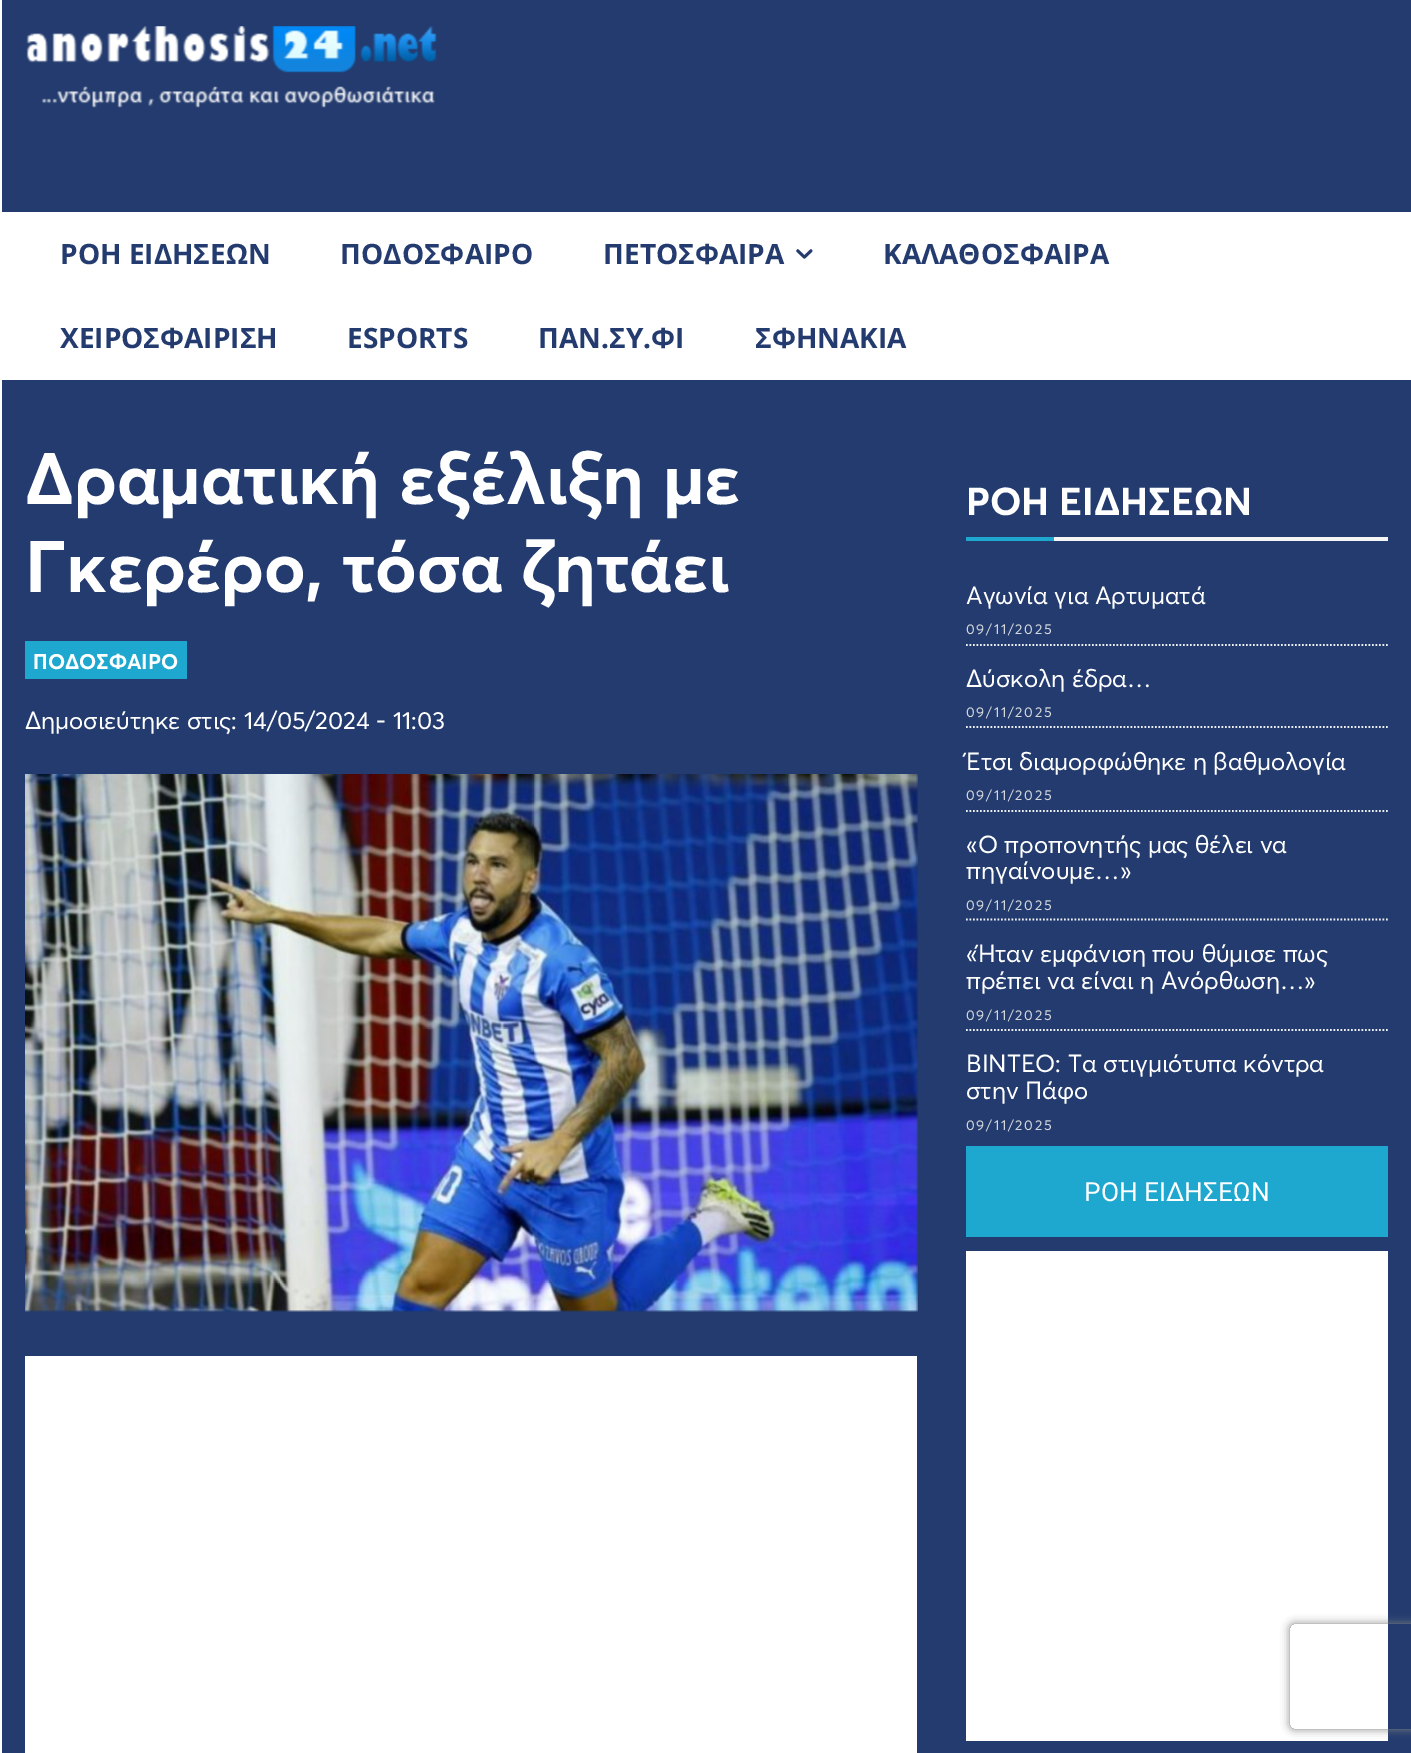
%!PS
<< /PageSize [1411 1753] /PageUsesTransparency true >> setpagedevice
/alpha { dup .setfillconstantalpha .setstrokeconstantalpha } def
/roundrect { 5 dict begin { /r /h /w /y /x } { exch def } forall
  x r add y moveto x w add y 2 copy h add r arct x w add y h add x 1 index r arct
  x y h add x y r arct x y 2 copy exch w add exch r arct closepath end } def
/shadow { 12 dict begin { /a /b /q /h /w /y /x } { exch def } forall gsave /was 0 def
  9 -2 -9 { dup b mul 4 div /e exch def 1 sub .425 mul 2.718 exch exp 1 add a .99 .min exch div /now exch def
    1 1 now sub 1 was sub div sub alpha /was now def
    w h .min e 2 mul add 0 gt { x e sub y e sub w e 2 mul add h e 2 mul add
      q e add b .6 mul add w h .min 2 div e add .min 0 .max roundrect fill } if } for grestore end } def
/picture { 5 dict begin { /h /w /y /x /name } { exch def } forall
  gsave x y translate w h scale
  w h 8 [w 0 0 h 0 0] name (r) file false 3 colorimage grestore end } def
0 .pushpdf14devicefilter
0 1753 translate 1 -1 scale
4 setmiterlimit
1 setgray
0 0 1411 1753 rectfill
0.137 0.231 0.431 setrgbcolor
2 0 1409 212 rectfill
(img1.rgb) 26 26 411 82 picture
/OpenSans-Bold [28 0 0 -28 0 0] selectfont
60 264 moveto (ΡΟΗ ΕΙΔΗΣΕΩΝ) show
340 264 moveto (ΠΟΔΟΣΦΑΙΡΟ) show
603 264 moveto (ΠΕΤΟΣΦΑΙΡΑ) show
(img2.rgb) 796 249 17 10 picture
883 264 moveto (ΚΑΛΑΘΟΣΦΑΙΡΑ) show
60 348 moveto (ΧΕΙΡΟΣΦΑΙΡΙΣΗ) show
347 348 moveto (ESPORTS) show
538 348 moveto (ΠΑΝ.ΣΥ.ΦΙ) show
755 348 moveto (ΣΦΗΝΑΚΙΑ) show
2 380 1409 1373 rectfill
/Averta-Bold [71.75 0 0 -71.75 0 0] selectfont
1 setgray
25 504 moveto (Δραματική εξέλιξη με) show
25 592 moveto (Γκερέρο, τόσα ζητάει) show
0.122 0.659 0.812 setrgbcolor
25 641 162 38 rectfill
/Averta-Bold [21 0 0 -21 0 0] selectfont
1 setgray
33 669 moveto (ΠΟΔΟΣΦΑΙΡΟ) show
/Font-Regular [24.5 0 0 -24.5 0 0] selectfont
25 729 moveto (Δημοσιεύτηκε στις: 14/05/2024 - 11:03) show
(img3.rgb) 25 774 893 538 picture
25 1356 892 397 rectfill
/Averta-Bold [38.5 0 0 -38.5 0 0] selectfont
966 515 moveto (ΡΟΗ ΕΙΔΗΣΕΩΝ) show
0.122 0.659 0.812 setrgbcolor
966 537 88 4 rectfill
0.961 setgray
1054 537 334 4 rectfill
/Font-Regular [24.5 0 0 -24.5 0 0] selectfont
1 setgray
966 604 moveto (Αγωνία για Αρτυματά) show
/Font-Regular [14 0 0 -14 0 0] selectfont
0.827 0.839 0.859 setrgbcolor
966 634 moveto 1.75 0 (09/11/2025) ashow
0.937 0.941 0.957 setrgbcolor
1.8 setlinewidth
[1.75 1.75] 0 setdash
newpath 966 645 moveto 1388 645 lineto stroke
/Font-Regular [24.5 0 0 -24.5 0 0] selectfont
1 setgray
966 687 moveto (Δύσκολη έδρα…) show
/Font-Regular [14 0 0 -14 0 0] selectfont
0.827 0.839 0.859 setrgbcolor
966 717 moveto 1.75 0 (09/11/2025) ashow
0.937 0.941 0.957 setrgbcolor
newpath 966 727 moveto 1388 727 lineto stroke
/Font-Regular [24.5 0 0 -24.5 0 0] selectfont
1 setgray
966 770 moveto (Έτσι διαμορφώθηκε η βαθμολογία) show
/Font-Regular [14 0 0 -14 0 0] selectfont
0.827 0.839 0.859 setrgbcolor
966 800 moveto 1.75 0 (09/11/2025) ashow
0.937 0.941 0.957 setrgbcolor
newpath 966 811 moveto 1388 811 lineto stroke
/Font-Regular [24.5 0 0 -24.5 0 0] selectfont
1 setgray
966 853 moveto («Ο προπονητής μας θέλει να) show
966 879 moveto (πηγαίνουμε…») show
/Font-Regular [14 0 0 -14 0 0] selectfont
0.827 0.839 0.859 setrgbcolor
966 910 moveto 1.75 0 (09/11/2025) ashow
0.937 0.941 0.957 setrgbcolor
newpath 966 919.5 moveto 1388 919.5 lineto stroke
/Font-Regular [24.5 0 0 -24.5 0 0] selectfont
1 setgray
966 962 moveto («Ήταν εμφάνιση που θύμισε πως) show
966 989 moveto (πρέπει να είναι η Ανόρθωση…») show
/Font-Regular [14 0 0 -14 0 0] selectfont
0.827 0.839 0.859 setrgbcolor
966 1020 moveto 1.75 0 (09/11/2025) ashow
0.937 0.941 0.957 setrgbcolor
newpath 966 1030 moveto 1388 1030 lineto stroke
/Font-Regular [24.5 0 0 -24.5 0 0] selectfont
1 setgray
966 1072 moveto (ΒΙΝΤΕΟ: Τα στιγμιότυπα κόντρα) show
966 1099 moveto (στην Πάφο) show
/Font-Regular [14 0 0 -14 0 0] selectfont
0.827 0.839 0.859 setrgbcolor
966 1130 moveto 1.75 0 (09/11/2025) ashow
0.122 0.659 0.812 setrgbcolor
966 1146 422 91 rectfill
/Roboto-Regular [26.25 0 0 -26.25 0 0] selectfont
1 setgray
1084 1201 moveto (ΡΟΗ ΕΙΔΗΣΕΩΝ) show
966 1251 422 490 rectfill
gsave
newpath 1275 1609 moveto 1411 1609 lineto 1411 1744 lineto 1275 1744 lineto closepath 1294 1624 moveto 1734 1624 lineto 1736 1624 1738 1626 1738 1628 curveto 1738 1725 lineto 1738 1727 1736 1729 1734 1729 curveto 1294 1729 lineto 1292 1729 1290 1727 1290 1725 curveto 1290 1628 lineto 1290 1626 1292 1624 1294 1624 curveto closepath eoclip newpath
0.502 setgray
1290 1624 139 105 4 4.5 1 shadow
grestore
.poppdf14devicefilter showpage
